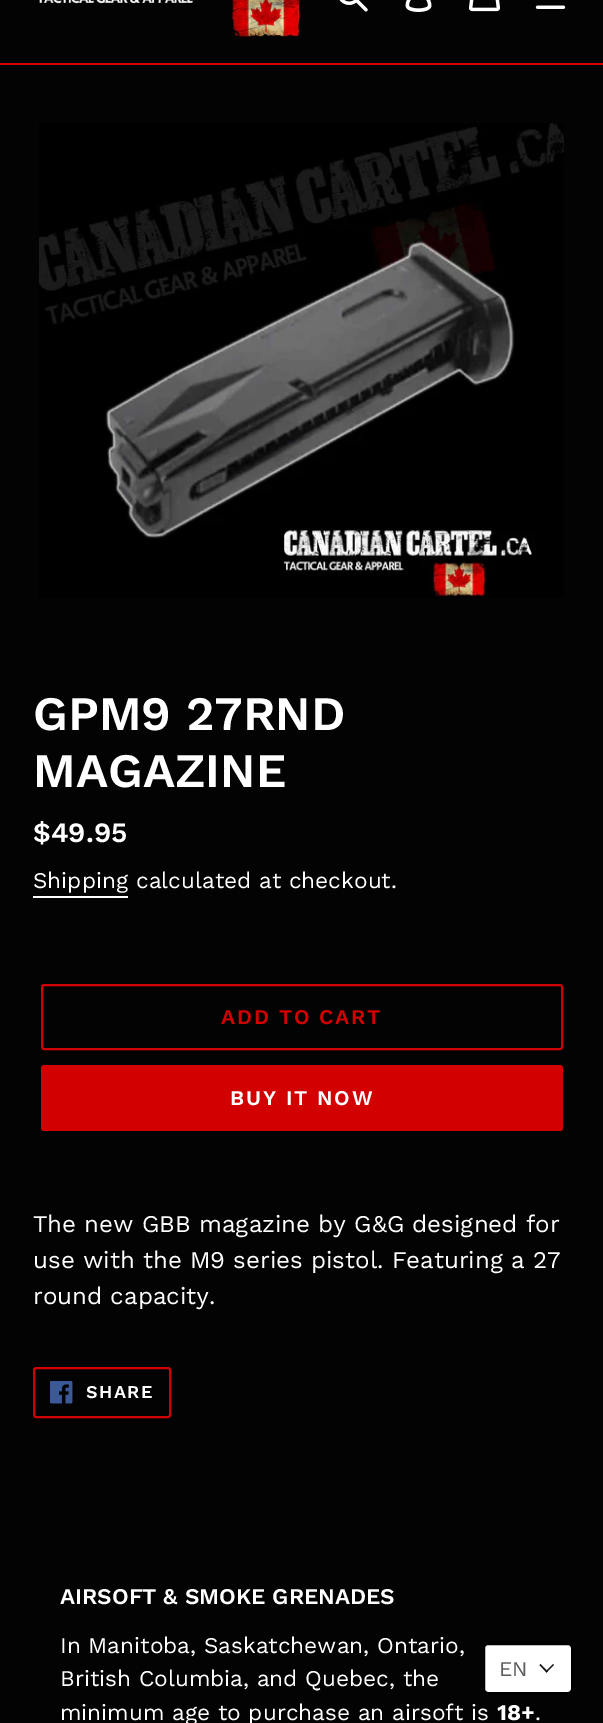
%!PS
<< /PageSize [603 1723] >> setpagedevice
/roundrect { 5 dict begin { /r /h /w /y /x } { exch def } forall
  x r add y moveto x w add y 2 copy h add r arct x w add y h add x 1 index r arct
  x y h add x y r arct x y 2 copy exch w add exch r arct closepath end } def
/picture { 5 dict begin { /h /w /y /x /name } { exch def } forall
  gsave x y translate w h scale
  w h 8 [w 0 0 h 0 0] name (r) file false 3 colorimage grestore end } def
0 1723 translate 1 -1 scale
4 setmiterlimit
0.012 setgray
0 0 603 1723 rectfill
0.824 0 0 setrgbcolor
0 63 603 2 rectfill
(img1.rgb) 39 0 262 38 picture
(img2.rgb) 339 0 29 12 picture
(img3.rgb) 405 0 27 12 picture
(img4.rgb) 469 0 31 12 picture
(img5.rgb) 535 5 31 4 picture
(img6.rgb) 39 123 525 475 picture
/WorkSans-SemiBold [48 0 0 -48 0 0] selectfont
1 setgray
33 730 moveto (GPM9 27RND) show
33 787 moveto (MAGAZINE) show
/WorkSans-SemiBold [28 0 0 -28 0 0] selectfont
33 842 moveto ($49.95) show
/WorkSans-Regular [22.5 0 0 -22.5 0 0] selectfont
33 888 moveto (Shipping) show
33 896 95 2 rectfill
136 888 moveto (calculated at checkout.) show
0.824 0 0 setrgbcolor
2 setlinewidth
42 985 520 64 2 roundrect stroke
/WorkSans-SemiBold [21 0 0 -21 0 0] selectfont
221 1024 moveto 1.75 0 (ADD TO CART) ashow
41 1065 522 66 3 roundrect fill
1 setgray
230 1105 moveto 1.75 0 (BUY IT NOW) ashow
/WorkSans-Regular [24 0 0 -24 0 0] selectfont
33 1232 moveto (The new GBB magazine by G&G designed for) show
33 1268 moveto (use with the M9 series pistol. Featuring a 27) show
33 1304 moveto (round capacity.) show
0.824 0 0 setrgbcolor
34 1368 136 49 2 roundrect stroke
(img7.rgb) 50 1381 23 23 picture
/WorkSans-SemiBold [18 0 0 -18 0 0] selectfont
1 setgray
86 1398 moveto 1.5 0 (SHARE) ashow
/WorkSans-SemiBold [22.5 0 0 -22.5 0 0] selectfont
60 1604 moveto (AIRSOFT & SMOKE GRENADES) show
/WorkSans-Regular [22.5 0 0 -22.5 0 0] selectfont
60 1653 moveto (In Manitoba, Saskatchewan, Ontario,) show
60 1686 moveto (British Columbia, and Quebec, the) show
60 1720 moveto (minimum age to purchase an airsoft is) show
/WorkSans-Bold [22.5 0 0 -22.5 0 0] selectfont
497 1720 moveto (18+) show
/WorkSans-Regular [22.5 0 0 -22.5 0 0] selectfont
535 1720 moveto (.) show
484 1644 88 49 4 roundrect gsave fill grestore
0 setgray
stroke
/WorkSans-Regular [21 0 0 -21 0 0] selectfont
0.361 setgray
499 1676 moveto (EN) show
0.102 setgray
newpath 553 1664 moveto 554 1665 lineto 546.5 1672.5 lineto 545.5 1671.5 lineto closepath fill
newpath 540.5 1664 moveto 548 1671.5 lineto 546.5 1672.5 lineto 539.5 1665 lineto closepath fill
showpage
